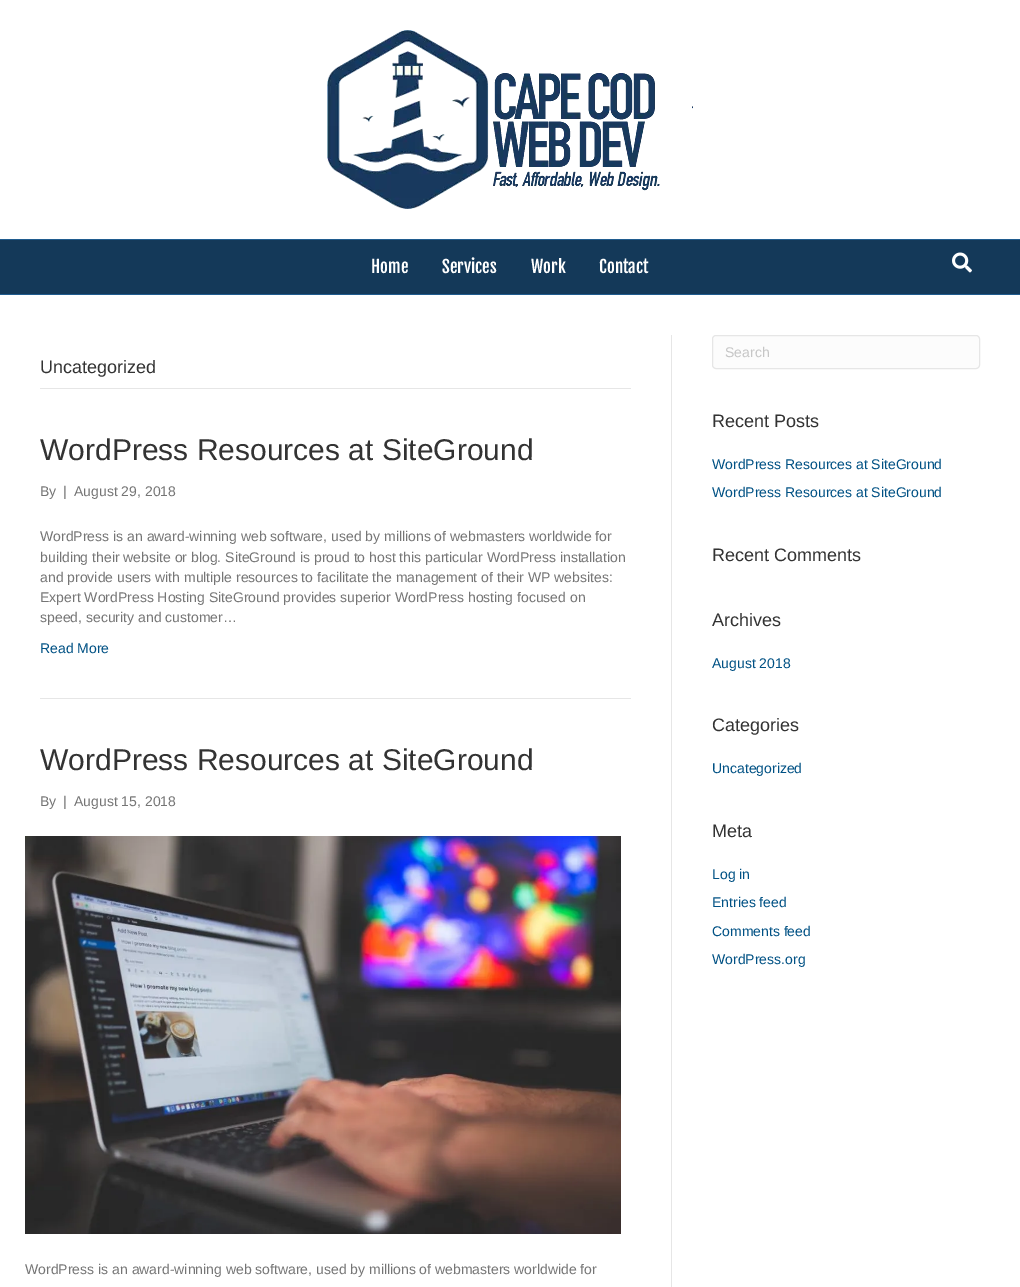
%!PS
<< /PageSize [1020 1287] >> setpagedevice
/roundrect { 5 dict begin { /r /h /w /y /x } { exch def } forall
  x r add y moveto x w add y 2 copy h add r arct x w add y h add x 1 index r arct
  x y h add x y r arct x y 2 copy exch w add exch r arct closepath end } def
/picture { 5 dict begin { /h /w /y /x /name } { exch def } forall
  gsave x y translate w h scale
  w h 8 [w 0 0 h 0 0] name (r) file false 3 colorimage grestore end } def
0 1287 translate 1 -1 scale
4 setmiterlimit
1 setgray
0 0 1020 1287 rectfill
(img1.rgb) 327 30 366 179 picture
0.078 0.224 0.349 setrgbcolor
0 240 1020 54 rectfill
0.125 0.361 0.561 setrgbcolor
0 239 1020 1 rectfill
0 294 1020 1 rectfill
/FjallaOne-Regular [17 0 0 -17 0 0] selectfont
1 setgray
371 273 moveto (Home) show
442 273 moveto (Services) show
531 273 moveto (Work) show
599 273 moveto (Contact) show
(img2.rgb) 952 252 20 21 picture
0.902 setgray
671 335 1 952 rectfill
40 388 591 1 rectfill
/LiberationSans-Regular [18 0 0 -18 0 0] selectfont
0.2 setgray
40 373 moveto (Uncategorized) show
0.902 setgray
40 698 591 1 rectfill
/LiberationSans-Regular [30 0 0 -30 0 0] selectfont
0.2 setgray
40 460 moveto (WordPress Resources at SiteGround) show
/LiberationSans-Regular [14 0 0 -14 0 0] selectfont
0.459 setgray
40 496 moveto (By) show
63 496 moveto (|) show
74 496 moveto (August 29, 2018) show
40 541 moveto (WordPress is an award-winning web software, used by millions of webmasters worldwide for) show
40 562 moveto (building their website or blog. SiteGround is proud to host this particular WordPress installation) show
40 582 moveto (and provide users with multiple resources to facilitate the management of their WP websites:) show
40 602 moveto (Expert WordPress Hosting SiteGround provides superior WordPress hosting focused on) show
40 622 moveto (speed, security and customer…) show
0 0.318 0.518 setrgbcolor
40 653 moveto (Read More) show
/LiberationSans-Regular [30 0 0 -30 0 0] selectfont
0.2 setgray
40 770 moveto (WordPress Resources at SiteGround) show
/LiberationSans-Regular [14 0 0 -14 0 0] selectfont
0.459 setgray
40 806 moveto (By) show
63 806 moveto (|) show
74 806 moveto (August 15, 2018) show
(img3.rgb) 25 836 596 398 picture
25 1274 moveto (WordPress is an award-winning web software, used by millions of webmasters worldwide for) show
0.988 setgray
712.5 335.5 267 33 3.5 roundrect gsave fill grestore
0.902 setgray
stroke
0.776 setgray
725 357 moveto (Search) show
/LiberationSans-Regular [18 0 0 -18 0 0] selectfont
0.2 setgray
712 427 moveto (Recent Posts) show
/LiberationSans-Regular [14 0 0 -14 0 0] selectfont
0 0.318 0.518 setrgbcolor
712 469 moveto (WordPress Resources at SiteGround) show
712 497 moveto (WordPress Resources at SiteGround) show
/LiberationSans-Regular [18 0 0 -18 0 0] selectfont
0.2 setgray
712 561 moveto (Recent Comments) show
712 626 moveto (Archives) show
/LiberationSans-Regular [14 0 0 -14 0 0] selectfont
0 0.318 0.518 setrgbcolor
712 668 moveto (August 2018) show
/LiberationSans-Regular [18 0 0 -18 0 0] selectfont
0.2 setgray
712 731 moveto (Categories) show
/LiberationSans-Regular [14 0 0 -14 0 0] selectfont
0 0.318 0.518 setrgbcolor
712 773 moveto (Uncategorized) show
/LiberationSans-Regular [18 0 0 -18 0 0] selectfont
0.2 setgray
712 837 moveto (Meta) show
/LiberationSans-Regular [14 0 0 -14 0 0] selectfont
0 0.318 0.518 setrgbcolor
712 879 moveto (Log in) show
712 907 moveto (Entries feed) show
712 936 moveto (Comments feed) show
712 964 moveto (WordPress.org) show
showpage
